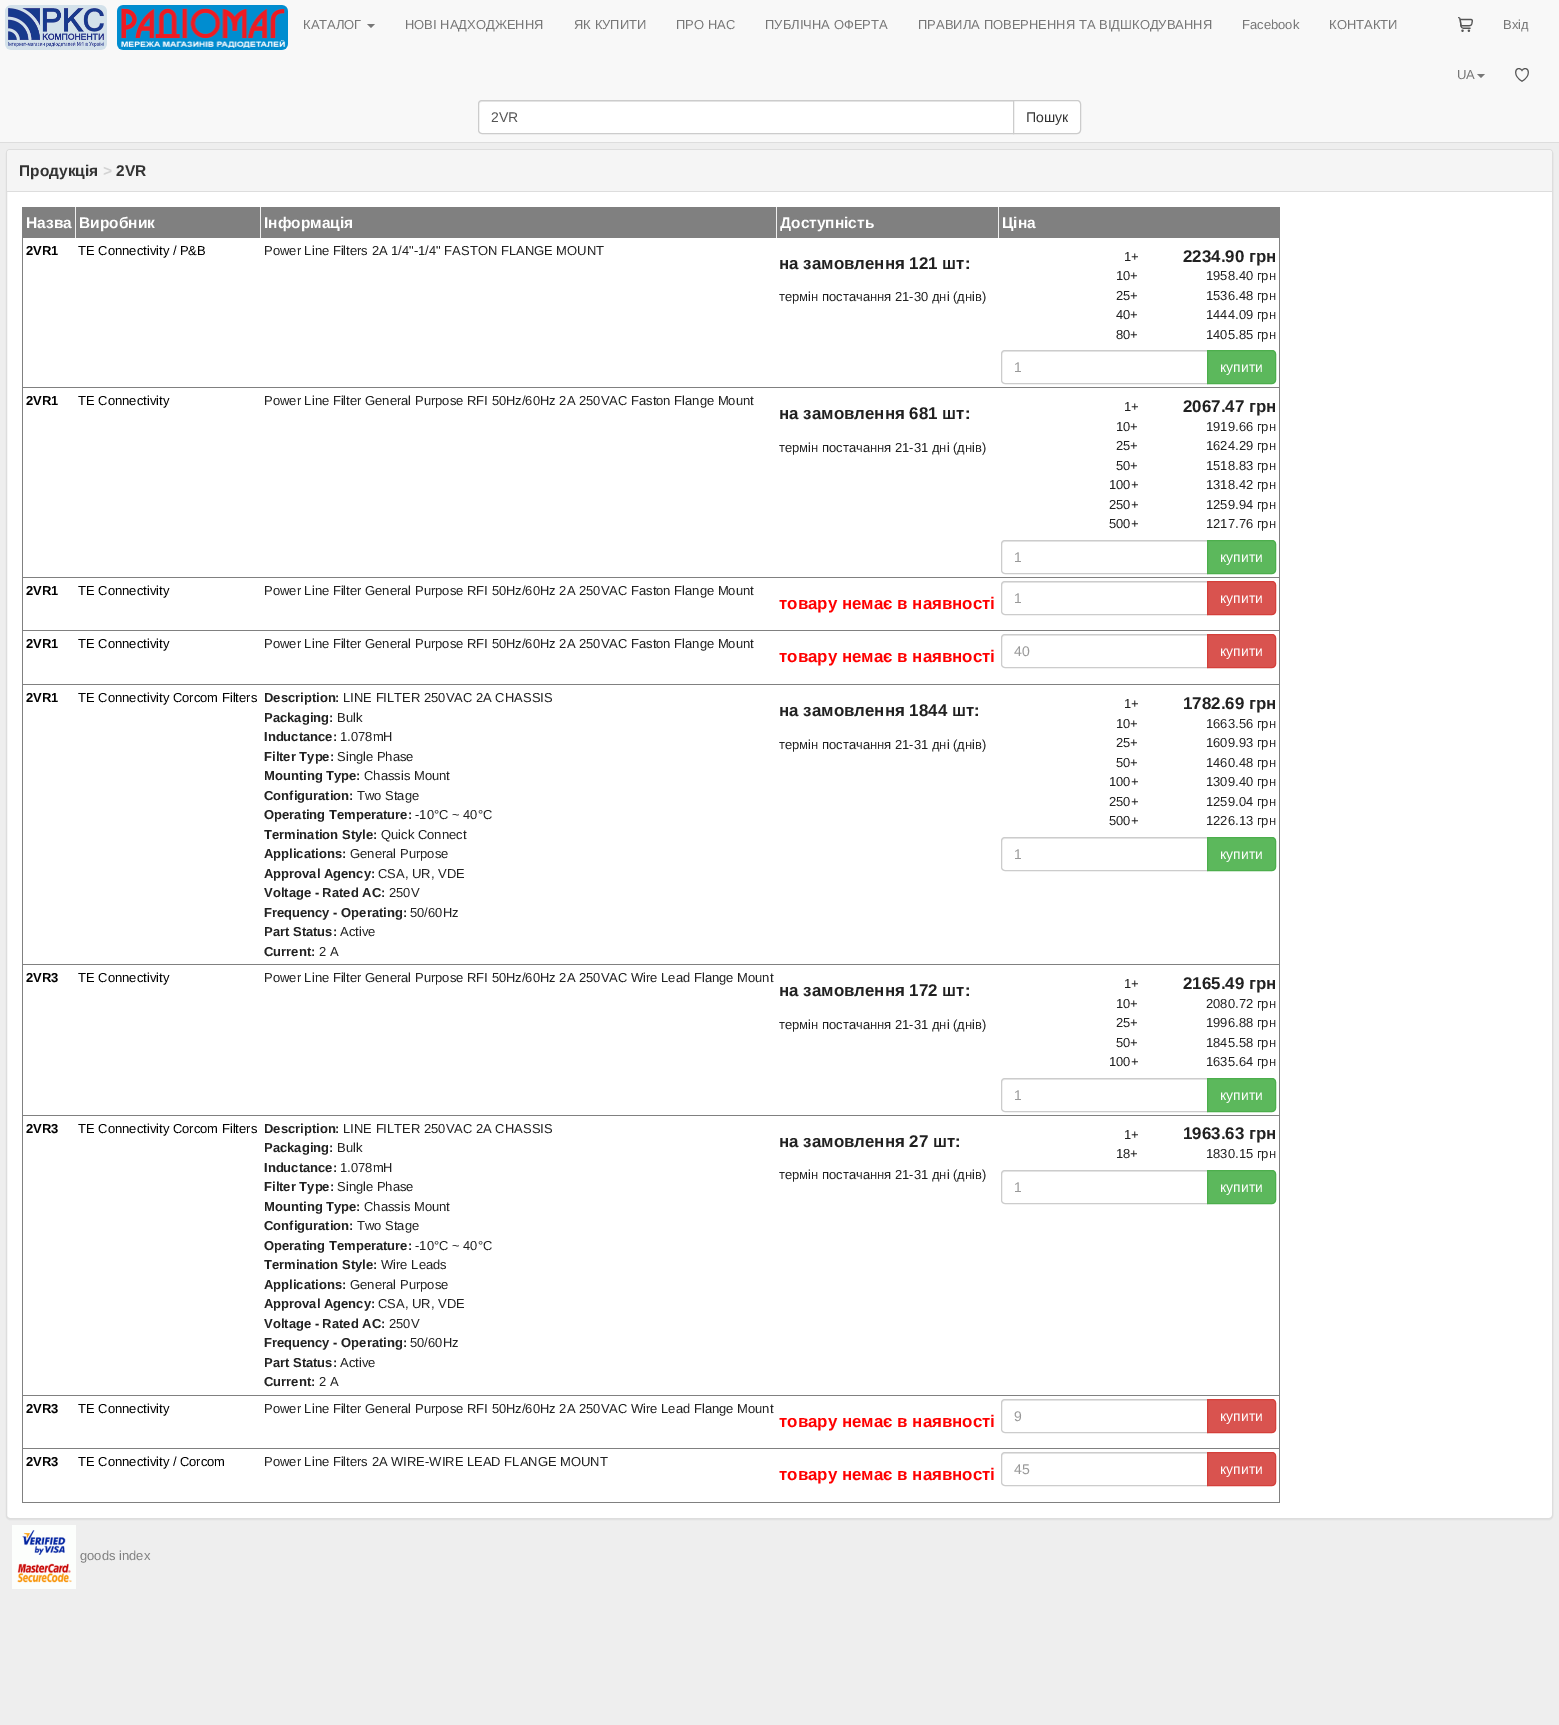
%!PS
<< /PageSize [1559 1725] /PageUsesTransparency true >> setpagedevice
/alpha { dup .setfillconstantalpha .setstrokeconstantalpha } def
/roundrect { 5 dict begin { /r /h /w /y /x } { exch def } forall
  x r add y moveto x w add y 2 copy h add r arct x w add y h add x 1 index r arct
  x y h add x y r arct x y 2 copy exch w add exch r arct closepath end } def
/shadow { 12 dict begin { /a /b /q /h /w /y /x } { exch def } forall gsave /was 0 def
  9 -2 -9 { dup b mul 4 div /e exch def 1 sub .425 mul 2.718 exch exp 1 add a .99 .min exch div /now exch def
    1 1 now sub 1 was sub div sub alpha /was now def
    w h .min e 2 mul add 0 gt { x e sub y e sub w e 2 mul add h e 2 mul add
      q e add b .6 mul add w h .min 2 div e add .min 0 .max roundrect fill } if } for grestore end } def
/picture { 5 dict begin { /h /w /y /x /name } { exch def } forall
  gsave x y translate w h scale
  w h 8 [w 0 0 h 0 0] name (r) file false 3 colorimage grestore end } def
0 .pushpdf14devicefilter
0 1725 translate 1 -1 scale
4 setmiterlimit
0.933 setgray
0 0 1559 1725 rectfill
0.973 setgray
0 0 1559 142 rectfill
0.867 setgray
0 142 1559 1 rectfill
(img1.rgb) 5 5 102 45 picture
(img2.rgb) 117 5 171 45 picture
/LiberationSans-Regular [13 0 0 -13 0 0] selectfont
0.467 setgray
303 29 moveto (КАТАЛОГ) show
newpath 367 24 moveto 375 24 lineto 371 28 lineto closepath fill
405 29 moveto (НОВІ НАДХОДЖЕННЯ) show
574 29 moveto (ЯК КУПИТИ) show
676 29 moveto (ПРО НАС) show
765 29 moveto (ПУБЛІЧНА ОФЕРТА) show
918 29 moveto (ПРАВИЛА ПОВЕРНЕННЯ ТА ВІДШКОДУВАННЯ) show
1242 29 moveto (Facebook) show
1329 29 moveto (КОНТАКТИ) show
(img3.rgb) 1458 17 15 15 picture
1503 29 moveto (Вхід) show
1457 79 moveto (UA) show
newpath 1477 74 moveto 1485 74 lineto 1481 78 lineto closepath fill
(img4.rgb) 1515 68 14 14 picture
1 setgray
newpath 482 100 moveto 1014 100 lineto 1014 134 lineto 482 134 lineto 480 134 478 132 478 130 curveto 478 104 lineto 478 102 480 100 482 100 curveto closepath fill
0.925 setgray
newpath 482 102 moveto 1013 102 lineto 1013 101 lineto 482 101 lineto 480 101 479 103 479 105 curveto 479 103 480 102 482 102 curveto closepath fill
0.8 setgray
newpath 482 100.5 moveto 1013.5 100.5 lineto 1013.5 133.5 lineto 482 133.5 lineto 480 133.5 478.5 132 478.5 130 curveto 478.5 104 lineto 478.5 102 480 100.5 482 100.5 curveto closepath stroke
/LiberationSans-Regular [14 0 0 -14 0 0] selectfont
0.333 setgray
491 122 moveto (2VR) show
1 setgray
newpath 1013.5 100.5 moveto 1077 100.5 lineto 1079 100.5 1080.5 102 1080.5 104 curveto 1080.5 130 lineto 1080.5 132 1079 133.5 1077 133.5 curveto 1013.5 133.5 lineto closepath gsave fill grestore
0.8 setgray
stroke
0.2 setgray
1026 122 moveto (Пошук) show
0 setgray
6 150 1547 1370 4 0.5 0.05 shadow
1 setgray
6.5 149.5 1546 1369 3.5 roundrect gsave fill grestore
0.867 setgray
stroke
0.961 setgray
newpath 10 150 moveto 1549 150 lineto 1550.5 150 1552 151.5 1552 153 curveto 1552 192 lineto 7 192 lineto 7 153 lineto 7 151.5 8.5 150 10 150 curveto closepath fill
0.867 setgray
7 191 1545 1 rectfill
/LiberationSans-Bold [15.5 0 0 -15.5 0 0] selectfont
0.2 setgray
19 176 moveto (Продукція) show
0.827 setgray
103 176 moveto (>) show
0.2 setgray
116 176 moveto (2VR) show
0.502 setgray
22 207 1258 1 rectfill
1279 207 1 1296 rectfill
22 1502 1258 1 rectfill
22 207 1 1296 rectfill
23 208 52 30 rectfill
0.941 setgray
75 207 1 31 rectfill
1 setgray
26 228 moveto (Назва) show
0.502 setgray
76 208 184 30 rectfill
0.941 setgray
260 207 1 31 rectfill
1 setgray
79 228 moveto (Виробник) show
0.502 setgray
261 208 515 30 rectfill
0.941 setgray
776 207 1 31 rectfill
1 setgray
264 228 moveto (Інформація) show
0.502 setgray
777 208 221 30 rectfill
0.941 setgray
998 207 1 31 rectfill
1 setgray
780 228 moveto (Доступність) show
0.502 setgray
999 208 280 30 rectfill
1 setgray
1002 228 moveto (Ціна) show
/LiberationSans-Bold [13 0 0 -13 0 0] selectfont
0 setgray
26 255 moveto (2VR1) show
/LiberationSans-Regular [13 0 0 -13 0 0] selectfont
78 255 moveto (TE Connectivity / P&B) show
0.129 setgray
264 255 moveto (Power Line Filters 2A 1/4"-1/4" FASTON FLANGE MOUNT) show
/LiberationSans-Bold [16.9 0 0 -16.9 0 0] selectfont
779 269 moveto (на замовлення 121 шт:) show
/LiberationSans-Regular [13 0 0 -13 0 0] selectfont
779 301 moveto (термін постачання 21-30 дні \(днів\)) show
0.502 setgray
22 387 1258 1 rectfill
0.129 setgray
1124 261 moveto (1+) show
/LiberationSans-Bold [16.9 0 0 -16.9 0 0] selectfont
1183 262 moveto (2234.90 грн) show
/LiberationSans-Regular [13 0 0 -13 0 0] selectfont
1116 280 moveto (10+) show
1206 280 moveto (1958.40 грн) show
1116 300 moveto (25+) show
1206 300 moveto (1536.48 грн) show
1116 319 moveto (40+) show
1206 319 moveto (1444.09 грн) show
1116 339 moveto (80+) show
1206 339 moveto (1405.85 грн) show
0.925 setgray
newpath 1005 352 moveto 1207 352 lineto 1207 351 lineto 1004 351 lineto 1002 352 1002 353 1002 355 curveto 1002 353 1003 352 1005 352 curveto closepath fill
0.8 setgray
newpath 1005 350.5 moveto 1207.5 350.5 lineto 1207.5 383.5 lineto 1005 383.5 lineto 1003 383.5 1001.5 382 1001.5 380 curveto 1001.5 354 lineto 1001.5 352 1003 350.5 1005 350.5 curveto closepath stroke
/LiberationSans-Regular [14 0 0 -14 0 0] selectfont
0.6 setgray
1014 372 moveto (1) show
0.361 0.722 0.361 setrgbcolor
newpath 1207.5 350.5 moveto 1272 350.5 lineto 1274 350.5 1275.5 352 1275.5 354 curveto 1275.5 380 lineto 1275.5 382 1274 383.5 1272 383.5 curveto 1207.5 383.5 lineto closepath gsave fill grestore
0.298 0.682 0.298 setrgbcolor
stroke
1 setgray
1220 372 moveto (купити) show
/LiberationSans-Bold [13 0 0 -13 0 0] selectfont
0 setgray
26 405 moveto (2VR1) show
/LiberationSans-Regular [13 0 0 -13 0 0] selectfont
78 405 moveto (TE Connectivity) show
0.129 setgray
264 405 moveto (Power Line Filter General Purpose RFI 50Hz/60Hz 2A 250VAC Faston Flange Mount) show
/LiberationSans-Bold [16.9 0 0 -16.9 0 0] selectfont
779 419 moveto (на замовлення 681 шт:) show
/LiberationSans-Regular [13 0 0 -13 0 0] selectfont
779 452 moveto (термін постачання 21-31 дні \(днів\)) show
0.502 setgray
22 577 1258 1 rectfill
0.129 setgray
1124 411 moveto (1+) show
/LiberationSans-Bold [16.9 0 0 -16.9 0 0] selectfont
1183 412 moveto (2067.47 грн) show
/LiberationSans-Regular [13 0 0 -13 0 0] selectfont
1116 431 moveto (10+) show
1206 431 moveto (1919.66 грн) show
1116 450 moveto (25+) show
1206 450 moveto (1624.29 грн) show
1116 470 moveto (50+) show
1206 470 moveto (1518.83 грн) show
1109 489 moveto (100+) show
1206 489 moveto (1318.42 грн) show
1109 509 moveto (250+) show
1206 509 moveto (1259.94 грн) show
1109 528 moveto (500+) show
1206 528 moveto (1217.76 грн) show
0.925 setgray
newpath 1005 542 moveto 1207 542 lineto 1207 541 lineto 1004 541 lineto 1002 542 1002 543 1002 545 curveto 1002 543 1003 542 1005 542 curveto closepath fill
0.8 setgray
newpath 1005 540.5 moveto 1207.5 540.5 lineto 1207.5 573.5 lineto 1005 573.5 lineto 1003 573.5 1001.5 572 1001.5 570 curveto 1001.5 544 lineto 1001.5 542 1003 540.5 1005 540.5 curveto closepath stroke
/LiberationSans-Regular [14 0 0 -14 0 0] selectfont
0.6 setgray
1014 562 moveto (1) show
0.361 0.722 0.361 setrgbcolor
newpath 1207.5 540.5 moveto 1272 540.5 lineto 1274 540.5 1275.5 542 1275.5 544 curveto 1275.5 570 lineto 1275.5 572 1274 573.5 1272 573.5 curveto 1207.5 573.5 lineto closepath gsave fill grestore
0.298 0.682 0.298 setrgbcolor
stroke
1 setgray
1220 562 moveto (купити) show
/LiberationSans-Bold [13 0 0 -13 0 0] selectfont
0 setgray
26 595 moveto (2VR1) show
/LiberationSans-Regular [13 0 0 -13 0 0] selectfont
78 595 moveto (TE Connectivity) show
0.129 setgray
264 595 moveto (Power Line Filter General Purpose RFI 50Hz/60Hz 2A 250VAC Faston Flange Mount) show
/LiberationSans-Bold [16.9 0 0 -16.9 0 0] selectfont
1 0 0 setrgbcolor
779 609 moveto (товару немає в наявності) show
0.502 setgray
22 630 1258 1 rectfill
0.925 setgray
newpath 1005 583 moveto 1207 583 lineto 1207 582 lineto 1004 582 lineto 1002 583 1002 584 1002 586 curveto 1002 584 1003 583 1005 583 curveto closepath fill
0.8 setgray
newpath 1005 581.5 moveto 1207.5 581.5 lineto 1207.5 614.5 lineto 1005 614.5 lineto 1003 614.5 1001.5 613 1001.5 611 curveto 1001.5 585 lineto 1001.5 583 1003 581.5 1005 581.5 curveto closepath stroke
/LiberationSans-Regular [14 0 0 -14 0 0] selectfont
0.6 setgray
1014 603 moveto (1) show
0.851 0.325 0.31 setrgbcolor
newpath 1207.5 581.5 moveto 1272 581.5 lineto 1274 581.5 1275.5 583 1275.5 585 curveto 1275.5 611 lineto 1275.5 613 1274 614.5 1272 614.5 curveto 1207.5 614.5 lineto closepath gsave fill grestore
0.831 0.247 0.227 setrgbcolor
stroke
1 setgray
1220 603 moveto (купити) show
/LiberationSans-Bold [13 0 0 -13 0 0] selectfont
0 setgray
26 648 moveto (2VR1) show
/LiberationSans-Regular [13 0 0 -13 0 0] selectfont
78 648 moveto (TE Connectivity) show
0.129 setgray
264 648 moveto (Power Line Filter General Purpose RFI 50Hz/60Hz 2A 250VAC Faston Flange Mount) show
/LiberationSans-Bold [16.9 0 0 -16.9 0 0] selectfont
1 0 0 setrgbcolor
779 662 moveto (товару немає в наявності) show
0.502 setgray
22 684 1258 1 rectfill
0.925 setgray
newpath 1005 636 moveto 1207 636 lineto 1207 635 lineto 1004 635 lineto 1002 636 1002 637 1002 639 curveto 1002 637 1003 636 1005 636 curveto closepath fill
0.8 setgray
newpath 1005 634.5 moveto 1207.5 634.5 lineto 1207.5 667.5 lineto 1005 667.5 lineto 1003 667.5 1001.5 666 1001.5 664 curveto 1001.5 638 lineto 1001.5 636 1003 634.5 1005 634.5 curveto closepath stroke
/LiberationSans-Regular [14 0 0 -14 0 0] selectfont
0.6 setgray
1014 656 moveto (40) show
0.851 0.325 0.31 setrgbcolor
newpath 1207.5 634.5 moveto 1272 634.5 lineto 1274 634.5 1275.5 636 1275.5 638 curveto 1275.5 664 lineto 1275.5 666 1274 667.5 1272 667.5 curveto 1207.5 667.5 lineto closepath gsave fill grestore
0.831 0.247 0.227 setrgbcolor
stroke
1 setgray
1220 656 moveto (купити) show
/LiberationSans-Bold [13 0 0 -13 0 0] selectfont
0 setgray
26 702 moveto (2VR1) show
/LiberationSans-Regular [13 0 0 -13 0 0] selectfont
78 702 moveto (TE Connectivity Corcom Filters) show
/LiberationSans-Bold [13 0 0 -13 0 0] selectfont
0.129 setgray
264 702 moveto (Description:) show
/LiberationSans-Regular [13 0 0 -13 0 0] selectfont
343 702 moveto (LINE FILTER 250VAC 2A CHASSIS) show
/LiberationSans-Bold [13 0 0 -13 0 0] selectfont
264 722 moveto (Packaging:) show
/LiberationSans-Regular [13 0 0 -13 0 0] selectfont
337 722 moveto (Bulk) show
/LiberationSans-Bold [13 0 0 -13 0 0] selectfont
264 741 moveto (Inductance:) show
/LiberationSans-Regular [13 0 0 -13 0 0] selectfont
340 741 moveto (1.078mH) show
/LiberationSans-Bold [13 0 0 -13 0 0] selectfont
264 761 moveto (Filter Type:) show
/LiberationSans-Regular [13 0 0 -13 0 0] selectfont
337 761 moveto (Single Phase) show
/LiberationSans-Bold [13 0 0 -13 0 0] selectfont
264 780 moveto (Mounting Type:) show
/LiberationSans-Regular [13 0 0 -13 0 0] selectfont
364 780 moveto (Chassis Mount) show
/LiberationSans-Bold [13 0 0 -13 0 0] selectfont
264 800 moveto (Configuration:) show
/LiberationSans-Regular [13 0 0 -13 0 0] selectfont
357 800 moveto (Two Stage) show
/LiberationSans-Bold [13 0 0 -13 0 0] selectfont
264 819 moveto (Operating Temperature:) show
/LiberationSans-Regular [13 0 0 -13 0 0] selectfont
415 819 moveto (-10°C ~ 40°C) show
/LiberationSans-Bold [13 0 0 -13 0 0] selectfont
264 839 moveto (Termination Style:) show
/LiberationSans-Regular [13 0 0 -13 0 0] selectfont
381 839 moveto (Quick Connect) show
/LiberationSans-Bold [13 0 0 -13 0 0] selectfont
264 858 moveto (Applications:) show
/LiberationSans-Regular [13 0 0 -13 0 0] selectfont
350 858 moveto (General Purpose) show
/LiberationSans-Bold [13 0 0 -13 0 0] selectfont
264 878 moveto (Approval Agency:) show
/LiberationSans-Regular [13 0 0 -13 0 0] selectfont
378 878 moveto (CSA, UR, VDE) show
/LiberationSans-Bold [13 0 0 -13 0 0] selectfont
264 897 moveto (Voltage - Rated AC:) show
/LiberationSans-Regular [13 0 0 -13 0 0] selectfont
389 897 moveto (250V) show
/LiberationSans-Bold [13 0 0 -13 0 0] selectfont
264 917 moveto (Frequency - Operating:) show
/LiberationSans-Regular [13 0 0 -13 0 0] selectfont
410 917 moveto (50/60Hz) show
/LiberationSans-Bold [13 0 0 -13 0 0] selectfont
264 936 moveto (Part Status:) show
/LiberationSans-Regular [13 0 0 -13 0 0] selectfont
340 936 moveto (Active) show
/LiberationSans-Bold [13 0 0 -13 0 0] selectfont
264 956 moveto (Current:) show
/LiberationSans-Regular [13 0 0 -13 0 0] selectfont
319 956 moveto (2 A) show
/LiberationSans-Bold [16.9 0 0 -16.9 0 0] selectfont
779 716 moveto (на замовлення 1844 шт:) show
/LiberationSans-Regular [13 0 0 -13 0 0] selectfont
779 749 moveto (термін постачання 21-31 дні \(днів\)) show
0.502 setgray
22 964 1258 1 rectfill
0.129 setgray
1124 708 moveto (1+) show
/LiberationSans-Bold [16.9 0 0 -16.9 0 0] selectfont
1183 709 moveto (1782.69 грн) show
/LiberationSans-Regular [13 0 0 -13 0 0] selectfont
1116 728 moveto (10+) show
1206 728 moveto (1663.56 грн) show
1116 747 moveto (25+) show
1206 747 moveto (1609.93 грн) show
1116 767 moveto (50+) show
1206 767 moveto (1460.48 грн) show
1109 786 moveto (100+) show
1206 786 moveto (1309.40 грн) show
1109 806 moveto (250+) show
1206 806 moveto (1259.04 грн) show
1109 825 moveto (500+) show
1206 825 moveto (1226.13 грн) show
0.925 setgray
newpath 1005 839 moveto 1207 839 lineto 1207 838 lineto 1004 838 lineto 1002 839 1002 840 1002 842 curveto 1002 840 1003 839 1005 839 curveto closepath fill
0.8 setgray
newpath 1005 837.5 moveto 1207.5 837.5 lineto 1207.5 870.5 lineto 1005 870.5 lineto 1003 870.5 1001.5 869 1001.5 867 curveto 1001.5 841 lineto 1001.5 839 1003 837.5 1005 837.5 curveto closepath stroke
/LiberationSans-Regular [14 0 0 -14 0 0] selectfont
0.6 setgray
1014 859 moveto (1) show
0.361 0.722 0.361 setrgbcolor
newpath 1207.5 837.5 moveto 1272 837.5 lineto 1274 837.5 1275.5 839 1275.5 841 curveto 1275.5 867 lineto 1275.5 869 1274 870.5 1272 870.5 curveto 1207.5 870.5 lineto closepath gsave fill grestore
0.298 0.682 0.298 setrgbcolor
stroke
1 setgray
1220 859 moveto (купити) show
/LiberationSans-Bold [13 0 0 -13 0 0] selectfont
0 setgray
26 982 moveto (2VR3) show
/LiberationSans-Regular [13 0 0 -13 0 0] selectfont
78 982 moveto (TE Connectivity) show
0.129 setgray
264 982 moveto (Power Line Filter General Purpose RFI 50Hz/60Hz 2A 250VAC Wire Lead Flange Mount) show
/LiberationSans-Bold [16.9 0 0 -16.9 0 0] selectfont
779 996 moveto (на замовлення 172 шт:) show
/LiberationSans-Regular [13 0 0 -13 0 0] selectfont
779 1029 moveto (термін постачання 21-31 дні \(днів\)) show
0.502 setgray
22 1115 1258 1 rectfill
0.129 setgray
1124 988 moveto (1+) show
/LiberationSans-Bold [16.9 0 0 -16.9 0 0] selectfont
1183 989 moveto (2165.49 грн) show
/LiberationSans-Regular [13 0 0 -13 0 0] selectfont
1116 1008 moveto (10+) show
1206 1008 moveto (2080.72 грн) show
1116 1027 moveto (25+) show
1206 1027 moveto (1996.88 грн) show
1116 1047 moveto (50+) show
1206 1047 moveto (1845.58 грн) show
1109 1066 moveto (100+) show
1206 1066 moveto (1635.64 грн) show
0.925 setgray
newpath 1005 1080 moveto 1207 1080 lineto 1207 1079 lineto 1004 1079 lineto 1002 1080 1002 1081 1002 1083 curveto 1002 1081 1003 1080 1005 1080 curveto closepath fill
0.8 setgray
newpath 1005 1078.5 moveto 1207.5 1078.5 lineto 1207.5 1111.5 lineto 1005 1111.5 lineto 1003 1111.5 1001.5 1110 1001.5 1108 curveto 1001.5 1082 lineto 1001.5 1080 1003 1078.5 1005 1078.5 curveto closepath stroke
/LiberationSans-Regular [14 0 0 -14 0 0] selectfont
0.6 setgray
1014 1100 moveto (1) show
0.361 0.722 0.361 setrgbcolor
newpath 1207.5 1078.5 moveto 1272 1078.5 lineto 1274 1078.5 1275.5 1080 1275.5 1082 curveto 1275.5 1108 lineto 1275.5 1110 1274 1111.5 1272 1111.5 curveto 1207.5 1111.5 lineto closepath gsave fill grestore
0.298 0.682 0.298 setrgbcolor
stroke
1 setgray
1220 1100 moveto (купити) show
/LiberationSans-Bold [13 0 0 -13 0 0] selectfont
0 setgray
26 1133 moveto (2VR3) show
/LiberationSans-Regular [13 0 0 -13 0 0] selectfont
78 1133 moveto (TE Connectivity Corcom Filters) show
/LiberationSans-Bold [13 0 0 -13 0 0] selectfont
0.129 setgray
264 1133 moveto (Description:) show
/LiberationSans-Regular [13 0 0 -13 0 0] selectfont
343 1133 moveto (LINE FILTER 250VAC 2A CHASSIS) show
/LiberationSans-Bold [13 0 0 -13 0 0] selectfont
264 1152 moveto (Packaging:) show
/LiberationSans-Regular [13 0 0 -13 0 0] selectfont
337 1152 moveto (Bulk) show
/LiberationSans-Bold [13 0 0 -13 0 0] selectfont
264 1172 moveto (Inductance:) show
/LiberationSans-Regular [13 0 0 -13 0 0] selectfont
340 1172 moveto (1.078mH) show
/LiberationSans-Bold [13 0 0 -13 0 0] selectfont
264 1191 moveto (Filter Type:) show
/LiberationSans-Regular [13 0 0 -13 0 0] selectfont
337 1191 moveto (Single Phase) show
/LiberationSans-Bold [13 0 0 -13 0 0] selectfont
264 1211 moveto (Mounting Type:) show
/LiberationSans-Regular [13 0 0 -13 0 0] selectfont
364 1211 moveto (Chassis Mount) show
/LiberationSans-Bold [13 0 0 -13 0 0] selectfont
264 1230 moveto (Configuration:) show
/LiberationSans-Regular [13 0 0 -13 0 0] selectfont
357 1230 moveto (Two Stage) show
/LiberationSans-Bold [13 0 0 -13 0 0] selectfont
264 1250 moveto (Operating Temperature:) show
/LiberationSans-Regular [13 0 0 -13 0 0] selectfont
415 1250 moveto (-10°C ~ 40°C) show
/LiberationSans-Bold [13 0 0 -13 0 0] selectfont
264 1269 moveto (Termination Style:) show
/LiberationSans-Regular [13 0 0 -13 0 0] selectfont
381 1269 moveto (Wire Leads) show
/LiberationSans-Bold [13 0 0 -13 0 0] selectfont
264 1289 moveto (Applications:) show
/LiberationSans-Regular [13 0 0 -13 0 0] selectfont
350 1289 moveto (General Purpose) show
/LiberationSans-Bold [13 0 0 -13 0 0] selectfont
264 1308 moveto (Approval Agency:) show
/LiberationSans-Regular [13 0 0 -13 0 0] selectfont
378 1308 moveto (CSA, UR, VDE) show
/LiberationSans-Bold [13 0 0 -13 0 0] selectfont
264 1328 moveto (Voltage - Rated AC:) show
/LiberationSans-Regular [13 0 0 -13 0 0] selectfont
389 1328 moveto (250V) show
/LiberationSans-Bold [13 0 0 -13 0 0] selectfont
264 1347 moveto (Frequency - Operating:) show
/LiberationSans-Regular [13 0 0 -13 0 0] selectfont
410 1347 moveto (50/60Hz) show
/LiberationSans-Bold [13 0 0 -13 0 0] selectfont
264 1367 moveto (Part Status:) show
/LiberationSans-Regular [13 0 0 -13 0 0] selectfont
340 1367 moveto (Active) show
/LiberationSans-Bold [13 0 0 -13 0 0] selectfont
264 1386 moveto (Current:) show
/LiberationSans-Regular [13 0 0 -13 0 0] selectfont
319 1386 moveto (2 A) show
/LiberationSans-Bold [16.9 0 0 -16.9 0 0] selectfont
779 1147 moveto (на замовлення 27 шт:) show
/LiberationSans-Regular [13 0 0 -13 0 0] selectfont
779 1179 moveto (термін постачання 21-31 дні \(днів\)) show
0.502 setgray
22 1395 1258 1 rectfill
0.129 setgray
1124 1139 moveto (1+) show
/LiberationSans-Bold [16.9 0 0 -16.9 0 0] selectfont
1183 1139 moveto (1963.63 грн) show
/LiberationSans-Regular [13 0 0 -13 0 0] selectfont
1116 1158 moveto (18+) show
1206 1158 moveto (1830.15 грн) show
0.925 setgray
newpath 1005 1172 moveto 1207 1172 lineto 1207 1171 lineto 1004 1171 lineto 1002 1172 1002 1173 1002 1175 curveto 1002 1173 1003 1172 1005 1172 curveto closepath fill
0.8 setgray
newpath 1005 1170.5 moveto 1207.5 1170.5 lineto 1207.5 1203.5 lineto 1005 1203.5 lineto 1003 1203.5 1001.5 1202 1001.5 1200 curveto 1001.5 1174 lineto 1001.5 1172 1003 1170.5 1005 1170.5 curveto closepath stroke
/LiberationSans-Regular [14 0 0 -14 0 0] selectfont
0.6 setgray
1014 1192 moveto (1) show
0.361 0.722 0.361 setrgbcolor
newpath 1207.5 1170.5 moveto 1272 1170.5 lineto 1274 1170.5 1275.5 1172 1275.5 1174 curveto 1275.5 1200 lineto 1275.5 1202 1274 1203.5 1272 1203.5 curveto 1207.5 1203.5 lineto closepath gsave fill grestore
0.298 0.682 0.298 setrgbcolor
stroke
1 setgray
1220 1192 moveto (купити) show
/LiberationSans-Bold [13 0 0 -13 0 0] selectfont
0 setgray
26 1413 moveto (2VR3) show
/LiberationSans-Regular [13 0 0 -13 0 0] selectfont
78 1413 moveto (TE Connectivity) show
0.129 setgray
264 1413 moveto (Power Line Filter General Purpose RFI 50Hz/60Hz 2A 250VAC Wire Lead Flange Mount) show
/LiberationSans-Bold [16.9 0 0 -16.9 0 0] selectfont
1 0 0 setrgbcolor
779 1427 moveto (товару немає в наявності) show
0.502 setgray
22 1448 1258 1 rectfill
0.925 setgray
newpath 1005 1401 moveto 1207 1401 lineto 1207 1400 lineto 1004 1400 lineto 1002 1401 1002 1402 1002 1404 curveto 1002 1402 1003 1401 1005 1401 curveto closepath fill
0.8 setgray
newpath 1005 1399.5 moveto 1207.5 1399.5 lineto 1207.5 1432.5 lineto 1005 1432.5 lineto 1003 1432.5 1001.5 1431 1001.5 1429 curveto 1001.5 1403 lineto 1001.5 1401 1003 1399.5 1005 1399.5 curveto closepath stroke
/LiberationSans-Regular [14 0 0 -14 0 0] selectfont
0.6 setgray
1014 1421 moveto (9) show
0.851 0.325 0.31 setrgbcolor
newpath 1207.5 1399.5 moveto 1272 1399.5 lineto 1274 1399.5 1275.5 1401 1275.5 1403 curveto 1275.5 1429 lineto 1275.5 1431 1274 1432.5 1272 1432.5 curveto 1207.5 1432.5 lineto closepath gsave fill grestore
0.831 0.247 0.227 setrgbcolor
stroke
1 setgray
1220 1421 moveto (купити) show
/LiberationSans-Bold [13 0 0 -13 0 0] selectfont
0 setgray
26 1466 moveto (2VR3) show
/LiberationSans-Regular [13 0 0 -13 0 0] selectfont
78 1466 moveto (TE Connectivity / Corcom) show
0.129 setgray
264 1466 moveto (Power Line Filters 2A WIRE-WIRE LEAD FLANGE MOUNT) show
/LiberationSans-Bold [16.9 0 0 -16.9 0 0] selectfont
1 0 0 setrgbcolor
779 1480 moveto (товару немає в наявності) show
0.925 setgray
newpath 1005 1454 moveto 1207 1454 lineto 1207 1453 lineto 1004 1453 lineto 1002 1454 1002 1455 1002 1457 curveto 1002 1455 1003 1454 1005 1454 curveto closepath fill
0.8 setgray
newpath 1005 1452.5 moveto 1207.5 1452.5 lineto 1207.5 1485.5 lineto 1005 1485.5 lineto 1003 1485.5 1001.5 1484 1001.5 1482 curveto 1001.5 1456 lineto 1001.5 1454 1003 1452.5 1005 1452.5 curveto closepath stroke
/LiberationSans-Regular [14 0 0 -14 0 0] selectfont
0.6 setgray
1014 1474 moveto (45) show
0.851 0.325 0.31 setrgbcolor
newpath 1207.5 1452.5 moveto 1272 1452.5 lineto 1274 1452.5 1275.5 1454 1275.5 1456 curveto 1275.5 1482 lineto 1275.5 1484 1274 1485.5 1272 1485.5 curveto 1207.5 1485.5 lineto closepath gsave fill grestore
0.831 0.247 0.227 setrgbcolor
stroke
1 setgray
1220 1474 moveto (купити) show
(img5.rgb) 12 1525 64 64 picture
/LiberationSans-Regular [13 0 0 -13 0 0] selectfont
0.502 setgray
80 1560 moveto (goods index) show
.poppdf14devicefilter showpage
